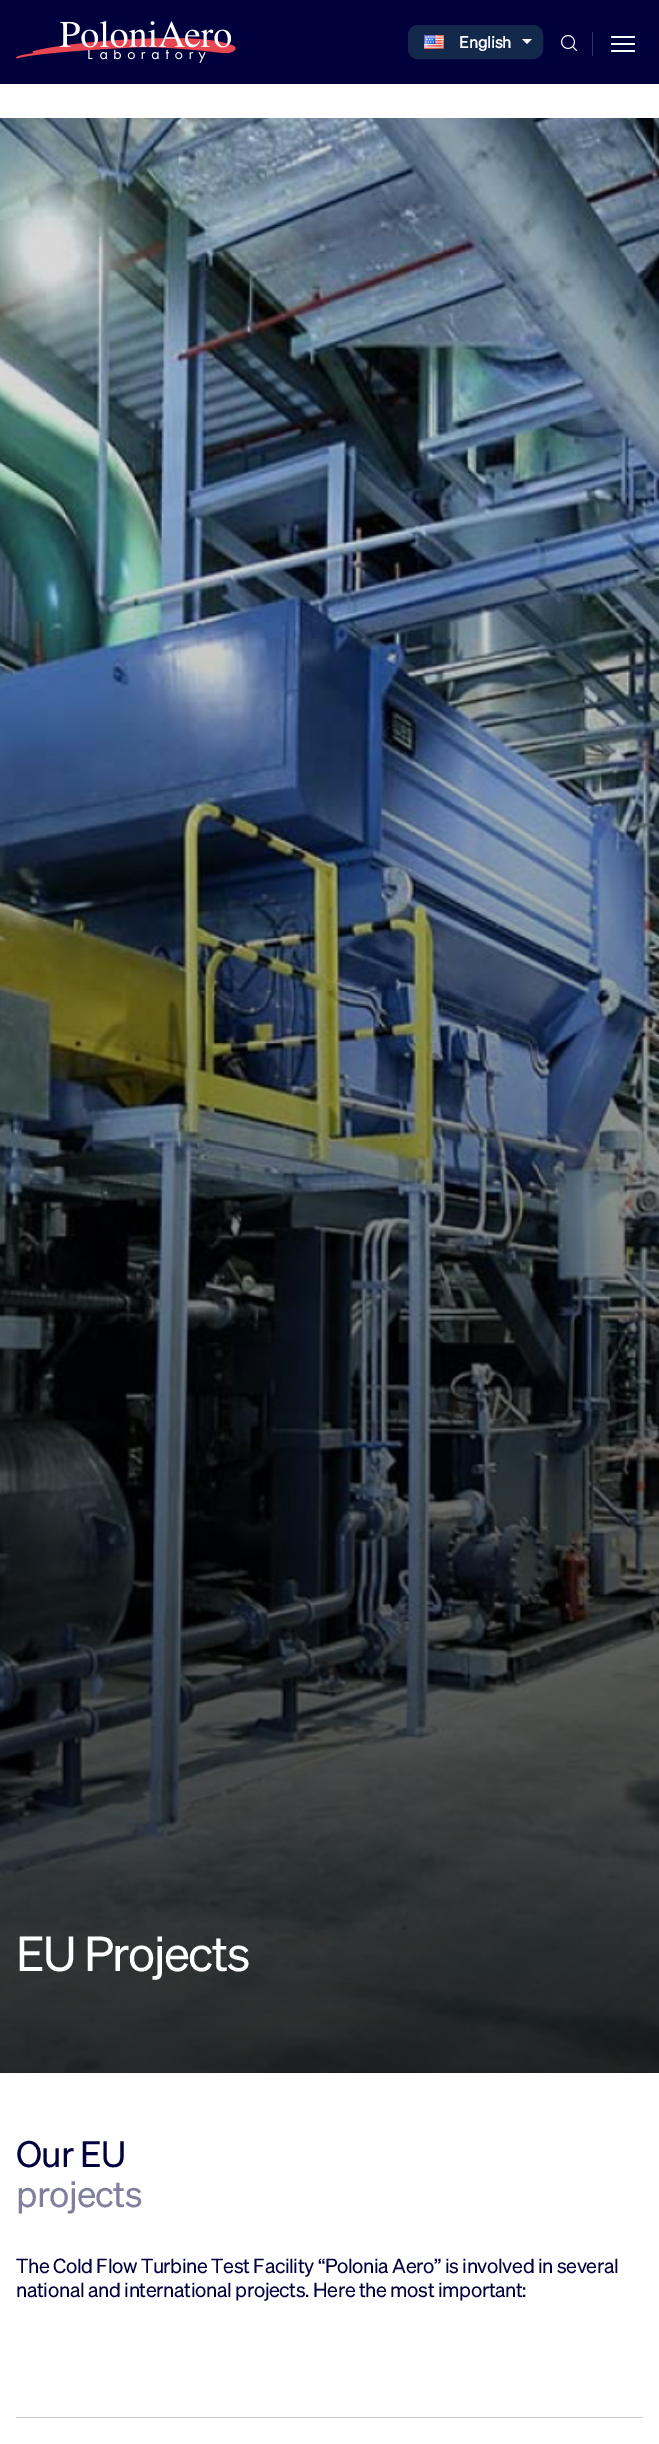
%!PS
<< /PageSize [659 2444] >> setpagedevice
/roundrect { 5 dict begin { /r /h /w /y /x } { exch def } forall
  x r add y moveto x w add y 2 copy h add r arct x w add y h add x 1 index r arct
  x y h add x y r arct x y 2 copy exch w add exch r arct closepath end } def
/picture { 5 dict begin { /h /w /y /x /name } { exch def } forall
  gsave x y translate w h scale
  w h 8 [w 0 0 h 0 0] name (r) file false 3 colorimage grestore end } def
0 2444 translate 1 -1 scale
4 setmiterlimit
1 setgray
0 0 659 2444 rectfill
0 0 0.239 setrgbcolor
0 0 659 84 rectfill
(img1.rgb) 16 21 220 42 picture
0.075 0.161 0.294 setrgbcolor
408.5 25.5 134 33 9.5 roundrect gsave fill grestore
stroke
(img2.rgb) 424 35 20 14 picture
/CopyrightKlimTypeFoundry-Bold [16 0 0 -16 0 0] selectfont
1 setgray
459 48 moveto (English) show
newpath 522 39 moveto 532 39 lineto 527 44 lineto closepath fill
0.2 0.2 0.392 setrgbcolor
592 32 1 24 rectfill
(img3.rgb) 561 35 16 16 picture
(img4.rgb) 611 36 24 16 picture
(img5.rgb) 0 118 659 1955 picture
/CopyrightKlimTypeFoundry-Regular [48 0 0 -48 0 0] selectfont
1 setgray
16 1971 moveto -1.5 0 (EU Projects) ashow
/CopyrightKlimTypeFoundry-Regular [36 0 0 -36 0 0] selectfont
0 0 0.239 setrgbcolor
16 2167 moveto -0.75 0 (Our EU) ashow
0.502 0.502 0.62 setrgbcolor
16 2207 moveto -0.75 0 (projects) ashow
/CopyrightKlimTypeFoundry-Regular [20 0 0 -20 0 0] selectfont
0 0 0.239 setrgbcolor
16 2273 moveto -0.4 0 (The Cold Flow Turbine Test Facility “Polonia Aero” is involved in several) ashow
16 2297 moveto -0.4 0 (national and international projects. Here the most important:) ashow
0.8 0.8 0.847 setrgbcolor
16 2417 627 1 rectfill
showpage
